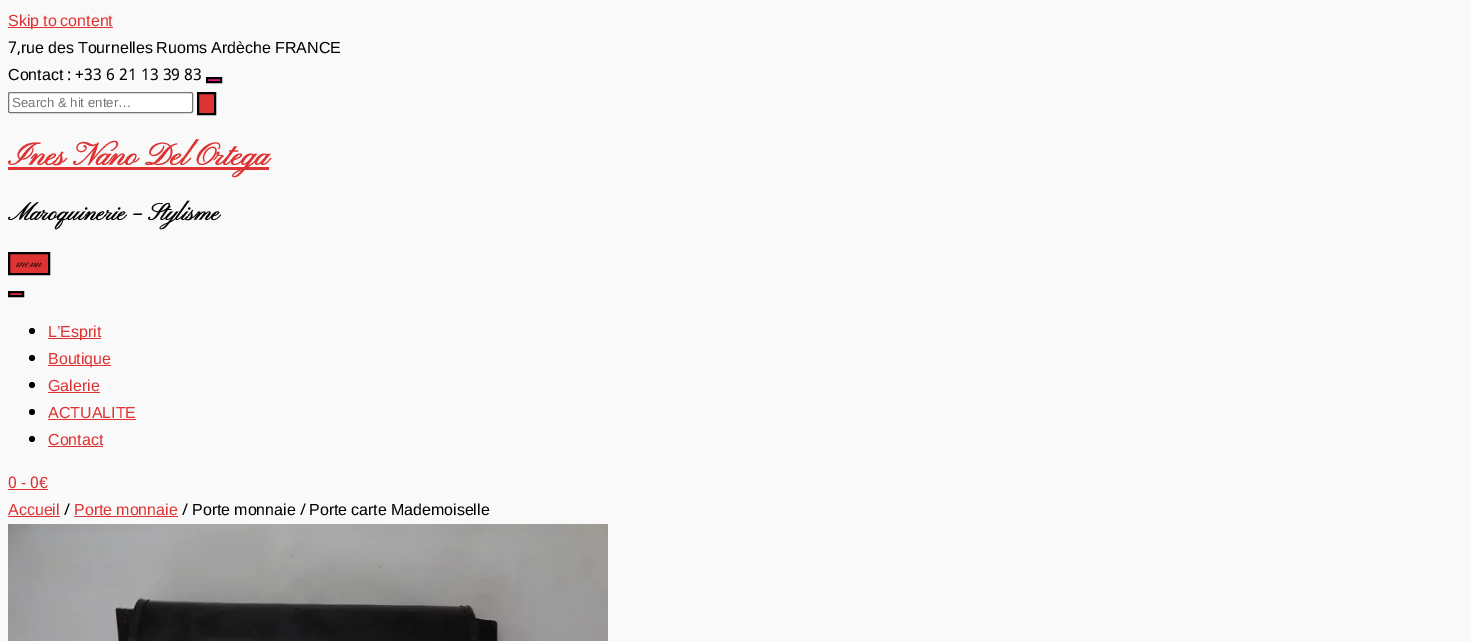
%!PS
<< /PageSize [1471 641] >> setpagedevice
/roundrect { 5 dict begin { /r /h /w /y /x } { exch def } forall
  x r add y moveto x w add y 2 copy h add r arct x w add y h add x 1 index r arct
  x y h add x y r arct x y 2 copy exch w add exch r arct closepath end } def
/picture { 5 dict begin { /h /w /y /x /name } { exch def } forall
  gsave x y translate w h scale
  w h 8 [w 0 0 h 0 0] name (r) file false 3 colorimage grestore end } def
0 641 translate 1 -1 scale
4 setmiterlimit
0.976 setgray
0 0 1471 641 rectfill
0.867 0.2 0.2 setrgbcolor
8 27 105 1 rectfill
/LiberationSans-Regular [16 0 0 -16 0 0] selectfont
8 26 moveto -0.5 0 32 (Skip to content) widthshow
/Khmer-Regular [16 0 0 -16 0 0] selectfont
0 setgray
8 53 moveto (7,) show
/LiberationSans-Regular [16 0 0 -16 0 0] selectfont
21 53 moveto -0.5 0 32 (rue des Tournelles Ruoms Ardèche) widthshow
275 53 moveto (FRANCE) show
8 80 moveto (Contact) show
/Khmer-Regular [16 0 0 -16 0 0] selectfont
67 80 moveto (: +33 6 21 13 39 83) show
0.918 0.106 0.51 setrgbcolor
newpath 207 78 moveto 221 78 lineto 221 82 lineto 207 82 lineto closepath gsave fill grestore
0 setgray
2 setlinewidth
stroke
1 setgray
8.5 92.5 184 20 1.5 roundrect gsave fill grestore
0.463 setgray
1 setlinewidth
stroke
/LiberationSans-Regular [13.25 0 0 -13.25 0 0] selectfont
0.459 setgray
12 107 moveto (Search & hit enter…) show
0.867 0.2 0.2 setrgbcolor
newpath 198 93 moveto 215 93 lineto 215 114 lineto 198 114 lineto closepath gsave fill grestore
0 setgray
2 setlinewidth
stroke
0.867 0.2 0.2 setrgbcolor
8 167 261 3 rectfill
/PinyonScript-Bold [32 0 0 -32 0 0] selectfont
8 165 moveto (Ines Nano Del Ortega) show
/PinyonScript-Bold [24 0 0 -24 0 0] selectfont
0 setgray
8 220 moveto (Maroquinerie – Stylisme) show
0.867 0.2 0.2 setrgbcolor
newpath 9 253 moveto 49 253 lineto 49 274 lineto 9 274 lineto closepath gsave fill grestore
0 setgray
stroke
/PinyonScript-Regular [13.25 0 0 -13.25 0 0] selectfont
16 267 moveto (menu) show
0.867 0.2 0.2 setrgbcolor
newpath 9 292 moveto 23 292 lineto 23 296 lineto 9 296 lineto closepath gsave fill grestore
0 setgray
stroke
newpath 32 331 3 0 360 arc closepath fill
0.867 0.2 0.2 setrgbcolor
48 338 53 1 rectfill
/LiberationSans-Regular [16 0 0 -16 0 0] selectfont
48 337 moveto (L’Esprit) show
0 setgray
newpath 32 358 3 0 360 arc closepath fill
0.867 0.2 0.2 setrgbcolor
48 365 63 1 rectfill
48 364 moveto (Boutique) show
0 setgray
newpath 32 385 3 0 360 arc closepath fill
0.867 0.2 0.2 setrgbcolor
48 391 moveto (Galerie) show
48 392 52 1 rectfill
0 setgray
newpath 32 412 3 0 360 arc closepath fill
0.867 0.2 0.2 setrgbcolor
48 418 moveto (ACTUALITE) show
48 419 88 1 rectfill
0 setgray
newpath 32 439 3 0 360 arc closepath fill
0.867 0.2 0.2 setrgbcolor
48 445 moveto (Contact) show
48 446 55 1 rectfill
/Khmer-Regular [16 0 0 -16 0 0] selectfont
8 488 moveto (0 - 0) show
8 489 40 1 rectfill
/LiberationSans-Regular [16 0 0 -16 0 0] selectfont
39 488 moveto (€) show
8 515 moveto (Accueil) show
8 516 52 1 rectfill
/Khmer-Regular [16 0 0 -16 0 0] selectfont
0 setgray
64 515 moveto (/) show
/LiberationSans-Regular [16 0 0 -16 0 0] selectfont
0.867 0.2 0.2 setrgbcolor
74 515 moveto -0.5 0 32 (Porte monnaie) widthshow
74 516 104 1 rectfill
/Khmer-Regular [16 0 0 -16 0 0] selectfont
0 setgray
182 515 moveto (/) show
/LiberationSans-Regular [16 0 0 -16 0 0] selectfont
192 515 moveto -0.5 0 32 (Porte monnaie) widthshow
/Khmer-Regular [16 0 0 -16 0 0] selectfont
300 515 moveto (/) show
/LiberationSans-Regular [16 0 0 -16 0 0] selectfont
309 515 moveto -0.5 0 32 (Porte carte Mademoiselle) widthshow
(img1.rgb) 8 524 600 117 picture
showpage
